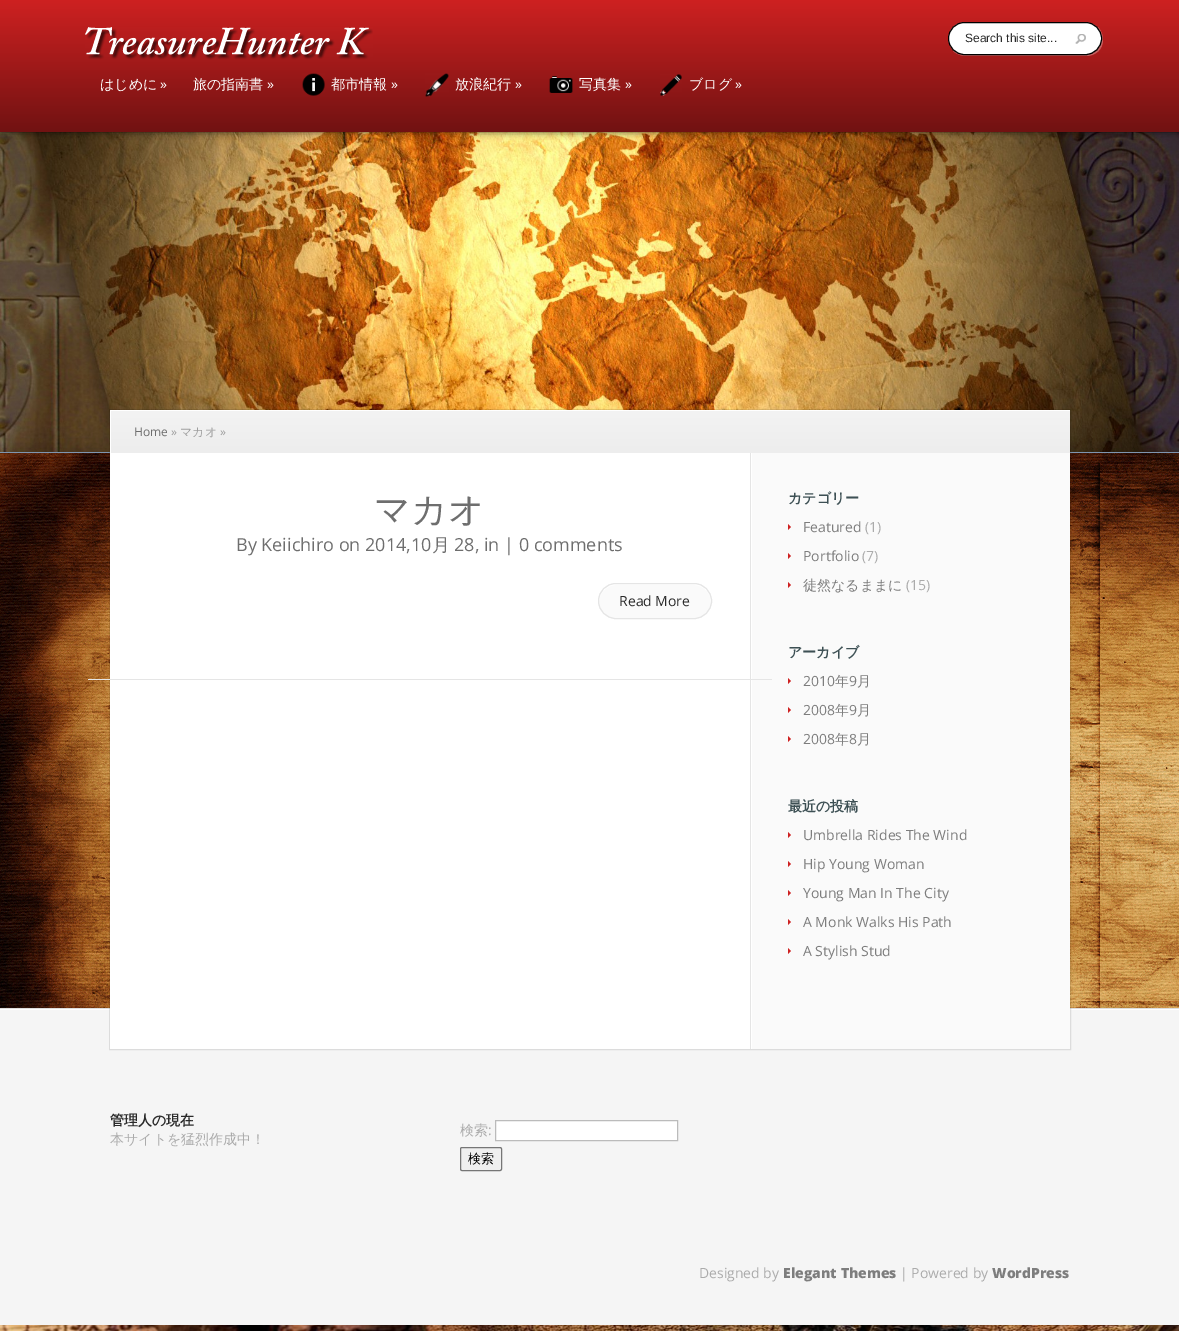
%!PS
<< /PageSize [1179 1331] /PageUsesTransparency true >> setpagedevice
/alpha { dup .setfillconstantalpha .setstrokeconstantalpha } def
/roundrect { 5 dict begin { /r /h /w /y /x } { exch def } forall
  x r add y moveto x w add y 2 copy h add r arct x w add y h add x 1 index r arct
  x y h add x y r arct x y 2 copy exch w add exch r arct closepath end } def
/shadow { 12 dict begin { /a /b /q /h /w /y /x } { exch def } forall gsave /was 0 def
  9 -2 -9 { dup b mul 4 div /e exch def 1 sub .425 mul 2.718 exch exp 1 add a .99 .min exch div /now exch def
    1 1 now sub 1 was sub div sub alpha /was now def
    w h .min e 2 mul add 0 gt { x e sub y e sub w e 2 mul add h e 2 mul add
      q e add b .6 mul add w h .min 2 div e add .min 0 .max roundrect fill } if } for grestore end } def
/picture { 5 dict begin { /h /w /y /x /name } { exch def } forall
  gsave x y translate w h scale
  w h 8 [w 0 0 h 0 0] name (r) file false 3 colorimage grestore end } def
0 .pushpdf14devicefilter
0 1331 translate 1 -1 scale
4 setmiterlimit
1 setgray
0 0 1179 1331 rectfill
(img1.rgb) 0 1325 1179 6 picture
(img8.rgb) 0 132 1179 320 picture
0 setgray
0 0 1179 132 0 3.5 0.7 shadow
gsave newpath 0 0 moveto 1179 0 lineto 1179 132 lineto 0 132 lineto closepath clip newpath
<< /ShadingType 2 /ColorSpace /DeviceRGB /Coords [590 0 590 132] /Extend [true true] /Function << /FunctionType 2 /Domain [0 1] /C0 [0.808 0.129 0.129] /C1 [0.443 0.071 0.071] /N 1 >> >> shfill grestore
(img2.rgb) 85 27 288 33 picture
0.3 alpha
1 setgray
newpath 953 51 moveto 956 54 961 56 966 56 curveto 1086 56 lineto 1096 56 1103 49 1103 40 curveto 1103 35 1101 30 1098 27 curveto 1100 30 1102 34 1102 38 curveto 1102 48 1095 55 1086 55 curveto 964 55 lineto 960 55 956 53 953 51 curveto closepath fill
1 alpha
948.5 22.5 153 32 16 roundrect gsave fill grestore
0 setgray
stroke
/LiberationSans-Regular [12 0 0 -12 0 0] selectfont
0.165 setgray
965 42 moveto (Search this site...) show
(img3.rgb) 1075 34 11 10 picture
/WenQuanYiZenHei-Medium [14 0 0 -14 0 0] selectfont
1 setgray
100 89 moveto (はじめに) show
/OpenSans-Regular [14 0 0 -14 0 0] selectfont
160 89 moveto (») show
/WenQuanYiZenHei-Medium [14 0 0 -14 0 0] selectfont
193 89 moveto (旅の指南書) show
/OpenSans-Regular [14 0 0 -14 0 0] selectfont
267 89 moveto (») show
(img4.rgb) 302 73 23 23 picture
/WenQuanYiZenHei-Medium [14 0 0 -14 0 0] selectfont
331 89 moveto (都市情報) show
/OpenSans-Regular [14 0 0 -14 0 0] selectfont
391 89 moveto (») show
(img5.rgb) 425 73 24 24 picture
/WenQuanYiZenHei-Medium [14 0 0 -14 0 0] selectfont
455 89 moveto (放浪紀行) show
/OpenSans-Regular [14 0 0 -14 0 0] selectfont
515 89 moveto (») show
(img6.rgb) 549 76 24 17 picture
/WenQuanYiZenHei-Medium [14 0 0 -14 0 0] selectfont
579 89 moveto (写真集) show
/OpenSans-Regular [14 0 0 -14 0 0] selectfont
625 89 moveto (») show
(img7.rgb) 660 74 22 22 picture
/WenQuanYiZenHei-Medium [14 0 0 -14 0 0] selectfont
689 89 moveto (ブログ) show
/OpenSans-Regular [14 0 0 -14 0 0] selectfont
735 89 moveto (») show
0 setgray
0 450 1179 598 0 10 0.2 shadow
(img9.rgb) 0 453 1179 555 picture
0.494 0.584 0.69 setrgbcolor
0 452 1179 1 rectfill
0.961 setgray
0 1010 1179 315 rectfill
1 setgray
0 1009 1179 1 rectfill
0.867 setgray
0 1008 1179 1 rectfill
0.1 alpha
0 setgray
109.5 409.5 961 640 rectstroke
1 alpha
gsave newpath 111 411 moveto 1070 411 lineto 1070 453 lineto 111 453 lineto closepath clip newpath
<< /ShadingType 2 /ColorSpace /DeviceRGB /Coords [591 411 591 453] /Extend [true true] /Function << /FunctionType 2 /Domain [0 1] /C0 [0.953 0.953 0.953] /C1 [0.929 0.929 0.929] /N 1 >> >> shfill grestore
1 setgray
110 410 960 1 rectfill
110 410 1 43 rectfill
/OpenSans-Regular [12 0 0 -12 0 0] selectfont
0.431 setgray
134 436 moveto (Home) show
0.62 setgray
171 436 moveto (») show
/WenQuanYiZenHei-Medium [12 0 0 -12 0 0] selectfont
180 436 moveto (マカオ) show
/OpenSans-Regular [12 0 0 -12 0 0] selectfont
220 436 moveto (») show
1 setgray
110 453 640 596 rectfill
0.98 setgray
752 453 318 596 rectfill
1 setgray
751 453 1 596 rectfill
0.898 setgray
750 453 1 596 rectfill
/WenQuanYiZenHei-Medium [36 0 0 -36 0 0] selectfont
0.431 setgray
374 522 moveto (マカオ) show
/OpenSans-Regular [18 0 0 -18 0 0] selectfont
236 551 moveto (By Keiichiro on 2014,10) show
/WenQuanYiZenHei-Medium [18 0 0 -18 0 0] selectfont
432 551 moveto (月) show
/OpenSans-Regular [18 0 0 -18 0 0] selectfont
454 551 moveto (28, in | 0 comments) show
0.98 setgray
598 583 114 36 18 roundrect fill
1 setgray
newpath 616 585 moveto 694 585 lineto 703 585 711 593 711 602 curveto 711 593 705 586 697 584 curveto 613 584 lineto 605 586 599 593 599 602 curveto 599 593 607 585 616 585 curveto closepath fill
0.898 setgray
598.5 583.5 113 35 17.5 roundrect stroke
/OpenSans-Regular [14 0 0 -14 0 0] selectfont
0.165 setgray
619 606 moveto (Read More) show
0.898 setgray
88 679 684 1 rectfill
/WenQuanYiZenHei-Bold [14 0 0 -14 0 0] selectfont
0.239 0.314 0.329 setrgbcolor
788 503 moveto (カテゴリー) show
0.808 0.129 0.129 setrgbcolor
newpath 788 530 moveto 788 524 lineto 791 527 lineto closepath fill
/OpenSans-Regular [14 0 0 -14 0 0] selectfont
0.49 setgray
803 532 moveto (Featured) show
0.671 setgray
865 532 moveto (\(1\)) show
0.808 0.129 0.129 setrgbcolor
newpath 788 559 moveto 788 553 lineto 791 556 lineto closepath fill
0.49 setgray
803 561 moveto (Portfolio) show
0.671 setgray
862 561 moveto (\(7\)) show
0.808 0.129 0.129 setrgbcolor
newpath 788 588 moveto 788 582 lineto 791 585 lineto closepath fill
/WenQuanYiZenHei-Medium [14 0 0 -14 0 0] selectfont
0.49 setgray
803 590 moveto (徒然なるままに) show
/OpenSans-Regular [14 0 0 -14 0 0] selectfont
0.671 setgray
906 590 moveto (\(15\)) show
/WenQuanYiZenHei-Bold [14 0 0 -14 0 0] selectfont
0.239 0.314 0.329 setrgbcolor
788 657 moveto (アーカイブ) show
0.808 0.129 0.129 setrgbcolor
newpath 788 684 moveto 788 678 lineto 791 681 lineto closepath fill
/OpenSans-Regular [14 0 0 -14 0 0] selectfont
0.49 setgray
803 686 moveto (2010) show
/WenQuanYiZenHei-Medium [14 0 0 -14 0 0] selectfont
835 686 moveto (年) show
/OpenSans-Regular [14 0 0 -14 0 0] selectfont
849 686 moveto (9) show
/WenQuanYiZenHei-Medium [14 0 0 -14 0 0] selectfont
857 686 moveto (月) show
0.808 0.129 0.129 setrgbcolor
newpath 788 713 moveto 788 707 lineto 791 710 lineto closepath fill
/OpenSans-Regular [14 0 0 -14 0 0] selectfont
0.49 setgray
803 715 moveto (2008) show
/WenQuanYiZenHei-Medium [14 0 0 -14 0 0] selectfont
835 715 moveto (年) show
/OpenSans-Regular [14 0 0 -14 0 0] selectfont
849 715 moveto (9) show
/WenQuanYiZenHei-Medium [14 0 0 -14 0 0] selectfont
857 715 moveto (月) show
0.808 0.129 0.129 setrgbcolor
newpath 788 742 moveto 788 736 lineto 791 739 lineto closepath fill
/OpenSans-Regular [14 0 0 -14 0 0] selectfont
0.49 setgray
803 744 moveto (2008) show
/WenQuanYiZenHei-Medium [14 0 0 -14 0 0] selectfont
835 744 moveto (年) show
/OpenSans-Regular [14 0 0 -14 0 0] selectfont
849 744 moveto (8) show
/WenQuanYiZenHei-Medium [14 0 0 -14 0 0] selectfont
857 744 moveto (月) show
/WenQuanYiZenHei-Bold [14 0 0 -14 0 0] selectfont
0.239 0.314 0.329 setrgbcolor
788 811 moveto (最近の投稿) show
0.808 0.129 0.129 setrgbcolor
newpath 788 838 moveto 788 832 lineto 791 835 lineto closepath fill
/OpenSans-Regular [14 0 0 -14 0 0] selectfont
0.49 setgray
803 840 moveto (Umbrella Rides The Wind) show
0.808 0.129 0.129 setrgbcolor
newpath 788 867 moveto 788 861 lineto 791 864 lineto closepath fill
0.49 setgray
803 869 moveto (Hip Young Woman) show
0.808 0.129 0.129 setrgbcolor
newpath 788 896 moveto 788 890 lineto 791 893 lineto closepath fill
0.49 setgray
803 898 moveto (Young Man In The City) show
0.808 0.129 0.129 setrgbcolor
newpath 788 925 moveto 788 919 lineto 791 922 lineto closepath fill
0.49 setgray
803 927 moveto (A Monk Walks His Path) show
0.808 0.129 0.129 setrgbcolor
newpath 788 954 moveto 788 948 lineto 791 951 lineto closepath fill
0.49 setgray
803 956 moveto (A Stylish Stud) show
/WenQuanYiZenHei-Bold [14 0 0 -14 0 0] selectfont
0.165 setgray
110 1125 moveto (管理人の現在) show
/WenQuanYiZenHei-Medium [14 0 0 -14 0 0] selectfont
0.671 setgray
110 1144 moveto (本サイトを猛烈作成中！) show
460 1135 moveto (検索) show
/OpenSans-Regular [14 0 0 -14 0 0] selectfont
488 1135 moveto (:) show
1 setgray
newpath 495.5 1120.5 moveto 677.5 1120.5 lineto 677.5 1140.5 lineto 495.5 1140.5 lineto closepath gsave fill grestore
0.733 setgray
stroke
0.937 setgray
460.5 1147.5 41 23 1.5 roundrect gsave fill grestore
0.463 setgray
stroke
/WenQuanYiZenHei-Medium [13 0 0 -13 0 0] selectfont
0 setgray
468 1163 moveto (検索) show
/OpenSans-Regular [14 0 0 -14 0 0] selectfont
0.671 setgray
699 1278 moveto (Designed by) show
/OpenSans-ExtraBold [14 0 0 -14 0 0] selectfont
0.49 setgray
783 1278 moveto (Elegant Themes) show
/OpenSans-Regular [14 0 0 -14 0 0] selectfont
0.671 setgray
900 1278 moveto (| Powered by) show
/OpenSans-ExtraBold [14 0 0 -14 0 0] selectfont
0.49 setgray
992 1278 moveto (WordPress) show
.poppdf14devicefilter showpage
